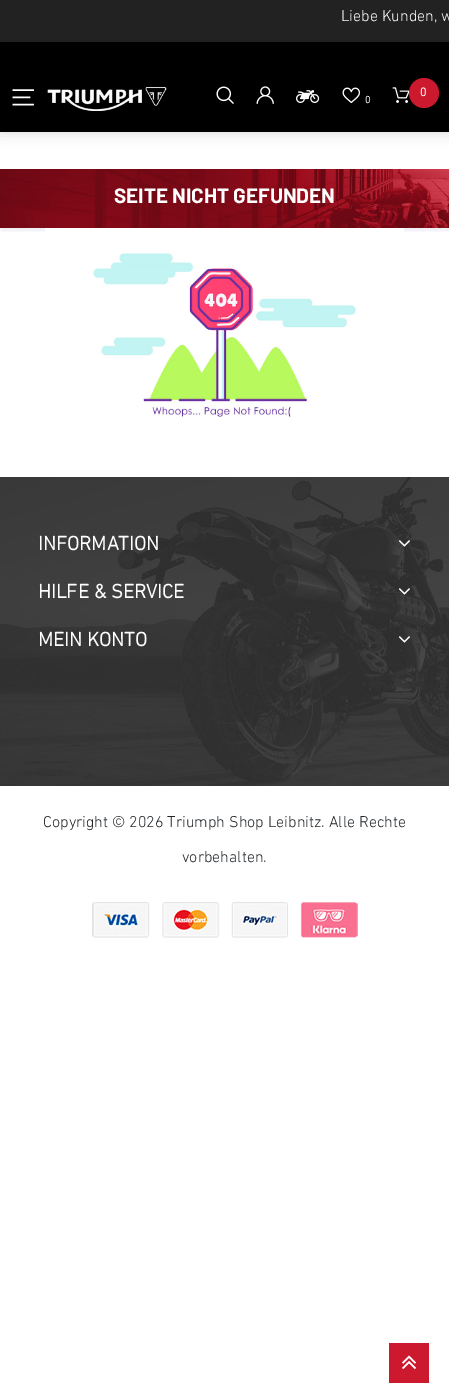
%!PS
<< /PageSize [449 1393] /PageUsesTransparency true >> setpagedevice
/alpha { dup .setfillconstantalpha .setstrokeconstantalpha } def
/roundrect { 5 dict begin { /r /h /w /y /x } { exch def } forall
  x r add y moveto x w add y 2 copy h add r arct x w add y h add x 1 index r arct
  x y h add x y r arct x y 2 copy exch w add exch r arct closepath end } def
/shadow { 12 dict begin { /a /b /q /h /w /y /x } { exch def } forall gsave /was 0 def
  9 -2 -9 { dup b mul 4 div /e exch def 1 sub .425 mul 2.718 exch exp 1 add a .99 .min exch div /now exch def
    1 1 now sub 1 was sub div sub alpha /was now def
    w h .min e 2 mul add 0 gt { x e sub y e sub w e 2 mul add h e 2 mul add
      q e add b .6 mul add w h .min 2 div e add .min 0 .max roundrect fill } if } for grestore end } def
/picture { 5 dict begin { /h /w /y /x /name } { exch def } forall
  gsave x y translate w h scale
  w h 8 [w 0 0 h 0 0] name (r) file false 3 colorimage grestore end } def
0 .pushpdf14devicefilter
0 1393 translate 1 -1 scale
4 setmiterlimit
1 setgray
0 0 449 1393 rectfill
0 setgray
0 42 449 90 0 7.5 0.15 shadow
0.133 setgray
0 0 449 42 rectfill
/DINNext-Light [16 0 0 -16 0 0] selectfont
1 setgray
341 21 moveto (Liebe Kunden, w) show
0 setgray
0 42 449 90 rectfill
(img1.rgb) 12 89 22 17 picture
(img2.rgb) 47 87 120 24 picture
(img3.rgb) 216 86 18 18 picture
(img4.rgb) 256 86 18 18 picture
(img5.rgb) 296 90 24 13 picture
(img6.rgb) 342 87 19 17 picture
/DINNext-Bold [10 0 0 -10 0 0] selectfont
1 setgray
365 103 moveto 1 0 (0) ashow
(img7.rgb) 392 87 18 16 picture
0.804 0.098 0.176 setrgbcolor
newpath 424 93 15 0 360 arc closepath fill
/DINNext-Bold [12 0 0 -12 0 0] selectfont
1 setgray
420 96 moveto 1 0 (0) ashow
0.937 0.933 0.961 setrgbcolor
1 172 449 59 0 1 1 shadow
(img8.rgb) 0 169 449 59 picture
/Barlow-Bold [20.75 0 0 -20.75 0 0] selectfont
1 setgray
114 203 moveto (SEITE NICHT GEFUNDEN) show
(img9.rgb) 45 228 359 189 picture
(img10.rgb) 0 477 449 309 picture
/DINNext-Bold [20 0 0 -20 0 0] selectfont
38 550 moveto (INFORMATION) show
(img11.rgb) 398 540 12 7 picture
38 598 moveto (HILFE & SERVICE) show
(img12.rgb) 398 588 12 7 picture
38 646 moveto (MEIN KONTO) show
(img13.rgb) 398 636 12 7 picture
/DINNext-Light [16 0 0 -16 0 0] selectfont
0.129 0.145 0.161 setrgbcolor
43 827 moveto (Copyright © 2026 Triumph Shop Leibnitz. Alle Rechte) show
182 862 moveto (vorbehalten.) show
(img14.rgb) 92 902 266 36 picture
0.804 0.098 0.176 setrgbcolor
389 1343 40 40 rectfill
(img15.rgb) 402 1355 14 14 picture
.poppdf14devicefilter showpage
